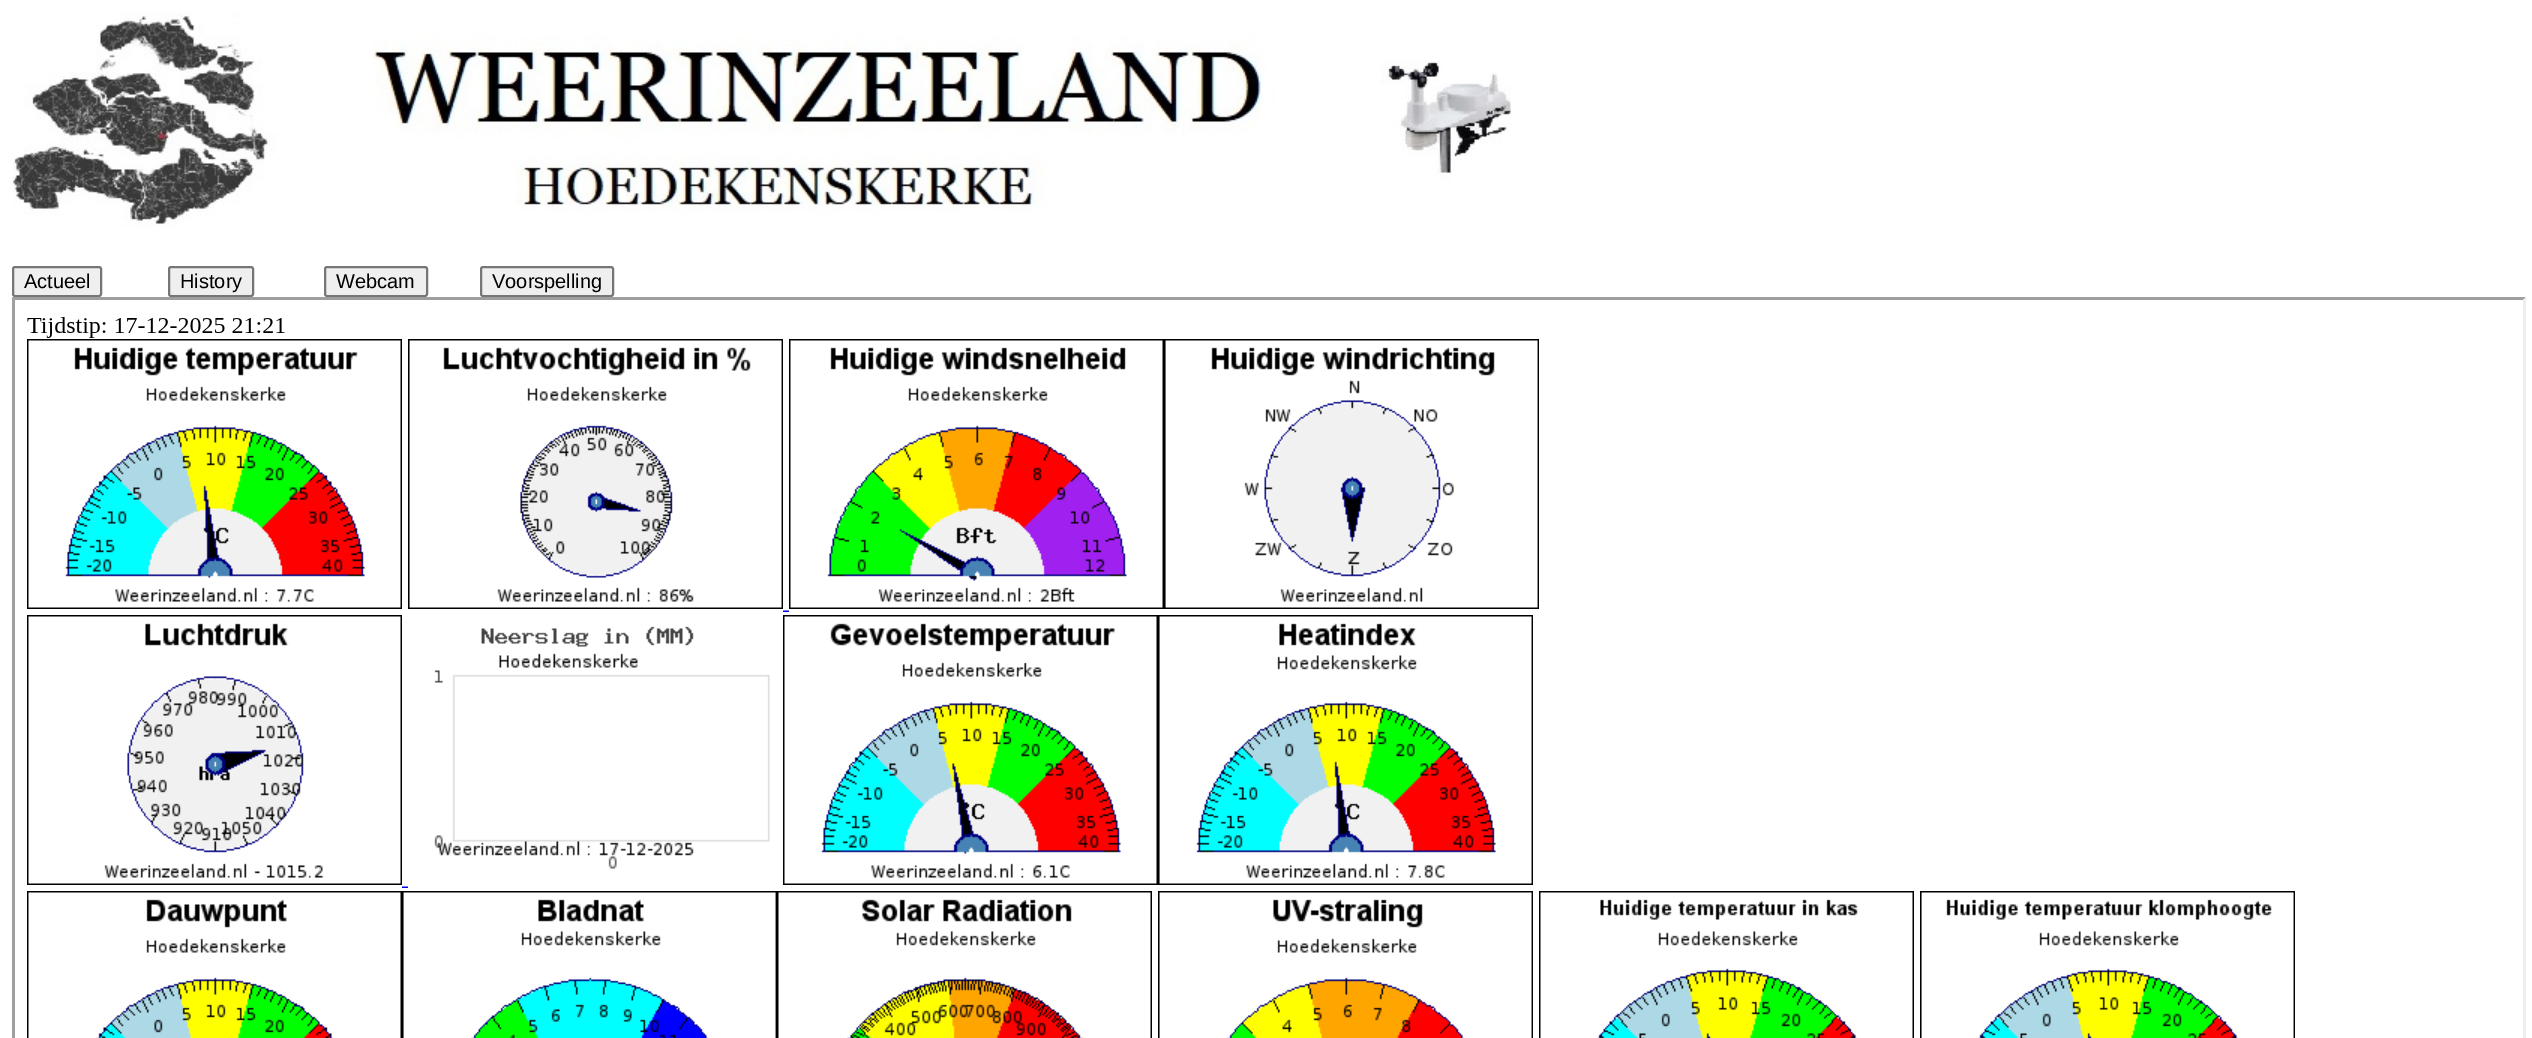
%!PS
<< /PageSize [2532 1038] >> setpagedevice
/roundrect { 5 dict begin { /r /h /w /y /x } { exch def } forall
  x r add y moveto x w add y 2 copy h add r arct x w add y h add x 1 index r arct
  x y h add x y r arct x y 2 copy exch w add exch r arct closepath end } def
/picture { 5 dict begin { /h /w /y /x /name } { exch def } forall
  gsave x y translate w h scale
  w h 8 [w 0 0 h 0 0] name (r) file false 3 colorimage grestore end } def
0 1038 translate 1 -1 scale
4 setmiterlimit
1 setgray
0 0 2532 1038 rectfill
(img1.rgb) 12 12 1499 215 picture
0.937 setgray
13 267 88 29 2 roundrect gsave fill grestore
0.463 setgray
2 setlinewidth
stroke
/LiberationSans-Regular [20 0 0 -20 0 0] selectfont
0 setgray
24 288 moveto (Actueel) show
0.937 setgray
169 267 84 29 2 roundrect gsave fill grestore
0.463 setgray
stroke
0 setgray
180 288 moveto (History) show
0.937 setgray
325 267 102 29 2 roundrect gsave fill grestore
0.463 setgray
stroke
0 setgray
336 288 moveto (Webcam) show
0.937 setgray
481 267 132 29 2 roundrect gsave fill grestore
0.463 setgray
stroke
0 setgray
492 288 moveto (Voorspelling) show
0.624 setgray
newpath 12 297 moveto 2526 297 lineto 2523 300 lineto 15 300 lineto closepath fill
newpath 12 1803 moveto 12 297 lineto 15 300 lineto 15 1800 lineto closepath fill
(img2.rgb) 27 317 2268 721 picture
0.933 setgray
newpath 2526 297 moveto 2526 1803 lineto 2523 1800 lineto 2523 300 lineto closepath fill
showpage
